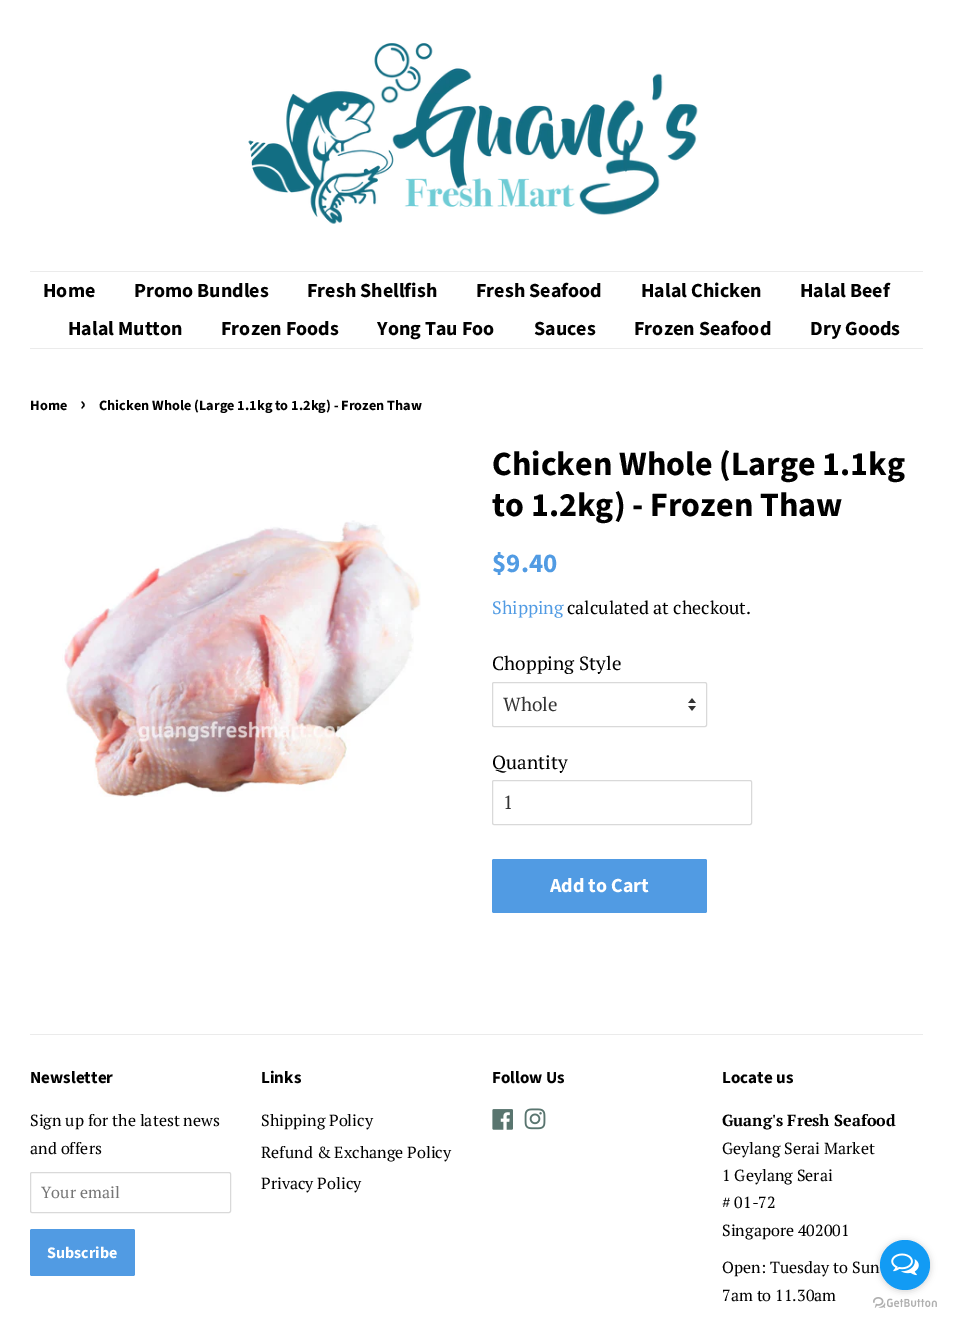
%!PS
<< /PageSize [953 1324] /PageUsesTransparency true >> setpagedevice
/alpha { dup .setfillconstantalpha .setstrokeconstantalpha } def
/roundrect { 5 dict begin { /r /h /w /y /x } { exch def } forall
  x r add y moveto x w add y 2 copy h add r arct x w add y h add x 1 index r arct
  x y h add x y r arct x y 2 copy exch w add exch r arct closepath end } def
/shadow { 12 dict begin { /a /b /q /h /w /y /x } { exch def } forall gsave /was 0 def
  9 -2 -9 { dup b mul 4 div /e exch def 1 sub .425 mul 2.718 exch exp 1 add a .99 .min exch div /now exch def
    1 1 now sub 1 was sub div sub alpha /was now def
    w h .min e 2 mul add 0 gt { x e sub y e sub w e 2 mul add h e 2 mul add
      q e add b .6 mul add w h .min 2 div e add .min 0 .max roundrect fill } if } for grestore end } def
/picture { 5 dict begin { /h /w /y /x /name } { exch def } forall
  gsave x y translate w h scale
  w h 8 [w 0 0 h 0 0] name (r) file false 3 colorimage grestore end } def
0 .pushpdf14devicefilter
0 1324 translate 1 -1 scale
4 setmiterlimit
1 setgray
0 0 953 1324 rectfill
(img1.rgb) 248 43 450 181 picture
0.922 setgray
30 271 893 1 rectfill
30 348 893 1 rectfill
/SourceSansPro-Bold [20 0 0 -20 0 0] selectfont
0 setgray
43 297 moveto (Home) show
134 297 moveto (Promo Bundles) show
307 297 moveto (Fresh Shellfish) show
476 297 moveto (Fresh Seafood) show
641 297 moveto (Halal Chicken) show
800 297 moveto (Halal Beef) show
68 335 moveto (Halal Mutton) show
221 335 moveto (Frozen Foods) show
377 335 moveto (Yong Tau Foo) show
534 335 moveto (Sauces) show
634 335 moveto (Frozen Seafood) show
810 335 moveto (Dry Goods) show
/SourceSansPro-Bold [14.25 0 0 -14.25 0 0] selectfont
30 410 moveto (Home) show
/SourceSansPro-Bold [20 0 0 -20 0 0] selectfont
80 410 moveto (›) show
/SourceSansPro-Bold [14.25 0 0 -14.25 0 0] selectfont
99 410 moveto (Chicken Whole \(Large 1.1kg to 1.2kg\) - Frozen Thaw) show
(img2.rgb) 62 520 359 277 picture
/SourceSansPro-Bold [34 0 0 -34 0 0] selectfont
492 475 moveto (Chicken Whole \(Large 1.1kg) show
492 516 moveto (to 1.2kg\) - Frozen Thaw) show
/SourceSansPro-Bold [27 0 0 -27 0 0] selectfont
0.318 0.608 0.89 setrgbcolor
492 572 moveto ($9.40) show
/PTSerif-Regular [18 0 0 -18 0 0] selectfont
492 614 moveto (Shipping) show
0 setgray
567 614 moveto (calculated at checkout.) show
/PTSerif-Regular [19 0 0 -19 0 0] selectfont
492 670 moveto (Chopping Style) show
(img3.rgb) 688 698 8 13 picture
0.851 setgray
492.5 682.5 214 44 1.5 roundrect stroke
0.2 setgray
503 711 moveto (Whole) show
0 setgray
492 769 moveto (Quantity) show
0.851 setgray
492.5 780.5 259 44 1.5 roundrect stroke
0.2 setgray
503 809 moveto (1) show
0.318 0.608 0.89 setrgbcolor
492 859 215 54 2 roundrect fill
/SourceSansPro-Bold [20 0 0 -20 0 0] selectfont
1 setgray
550 892 moveto (Add to Cart) show
0.922 setgray
30 1034 893 1 rectfill
/SourceSansPro-Bold [17 0 0 -17 0 0] selectfont
0 setgray
30 1083 moveto (Newsletter) show
/PTSerif-Regular [16.1 0 0 -16.1 0 0] selectfont
30 1126 moveto (Sign up for the latest news) show
30 1154 moveto (and offers) show
0.851 setgray
30.5 1172.5 200 40 1.5 roundrect stroke
0.459 setgray
41 1198 moveto (Your email) show
0.318 0.608 0.89 setrgbcolor
30 1229 105 47 2 roundrect fill
/SourceSansPro-Bold [16.1 0 0 -16.1 0 0] selectfont
1 setgray
47 1258 moveto (Subscribe) show
/SourceSansPro-Bold [17 0 0 -17 0 0] selectfont
0 setgray
261 1083 moveto (Links) show
/PTSerif-Regular [16.1 0 0 -16.1 0 0] selectfont
261 1126 moveto (Shipping Policy) show
261 1158 moveto (Refund & Exchange Policy) show
261 1189 moveto (Privacy Policy) show
/SourceSansPro-Bold [17 0 0 -17 0 0] selectfont
492 1083 moveto (Follow Us) show
(img4.rgb) 492 1109 21 21 picture
(img5.rgb) 524 1108 22 22 picture
722 1083 moveto (Locate us) show
/PTSerif-Bold [16.1 0 0 -16.1 0 0] selectfont
722 1126 moveto (Guang's Fresh Seafood) show
/PTSerif-Regular [16.1 0 0 -16.1 0 0] selectfont
722 1154 moveto (Geylang Serai Market) show
722 1181 moveto (1 Geylang Serai) show
722 1208 moveto (# 01-72) show
722 1236 moveto (Singapore 402001) show
722 1273 moveto (Open: Tuesday to Sun) show
722 1301 moveto (7am to 11.30am) show
(img7.rgb) 873 1297 64 11 picture
0.533 setgray
880 1241 50 50 25 3.5 0.4 shadow
0.071 0.608 0.957 setrgbcolor
newpath 905 1265 25 0 360 arc closepath fill
(img6.rgb) 891 1253 28 23 picture
.poppdf14devicefilter showpage
